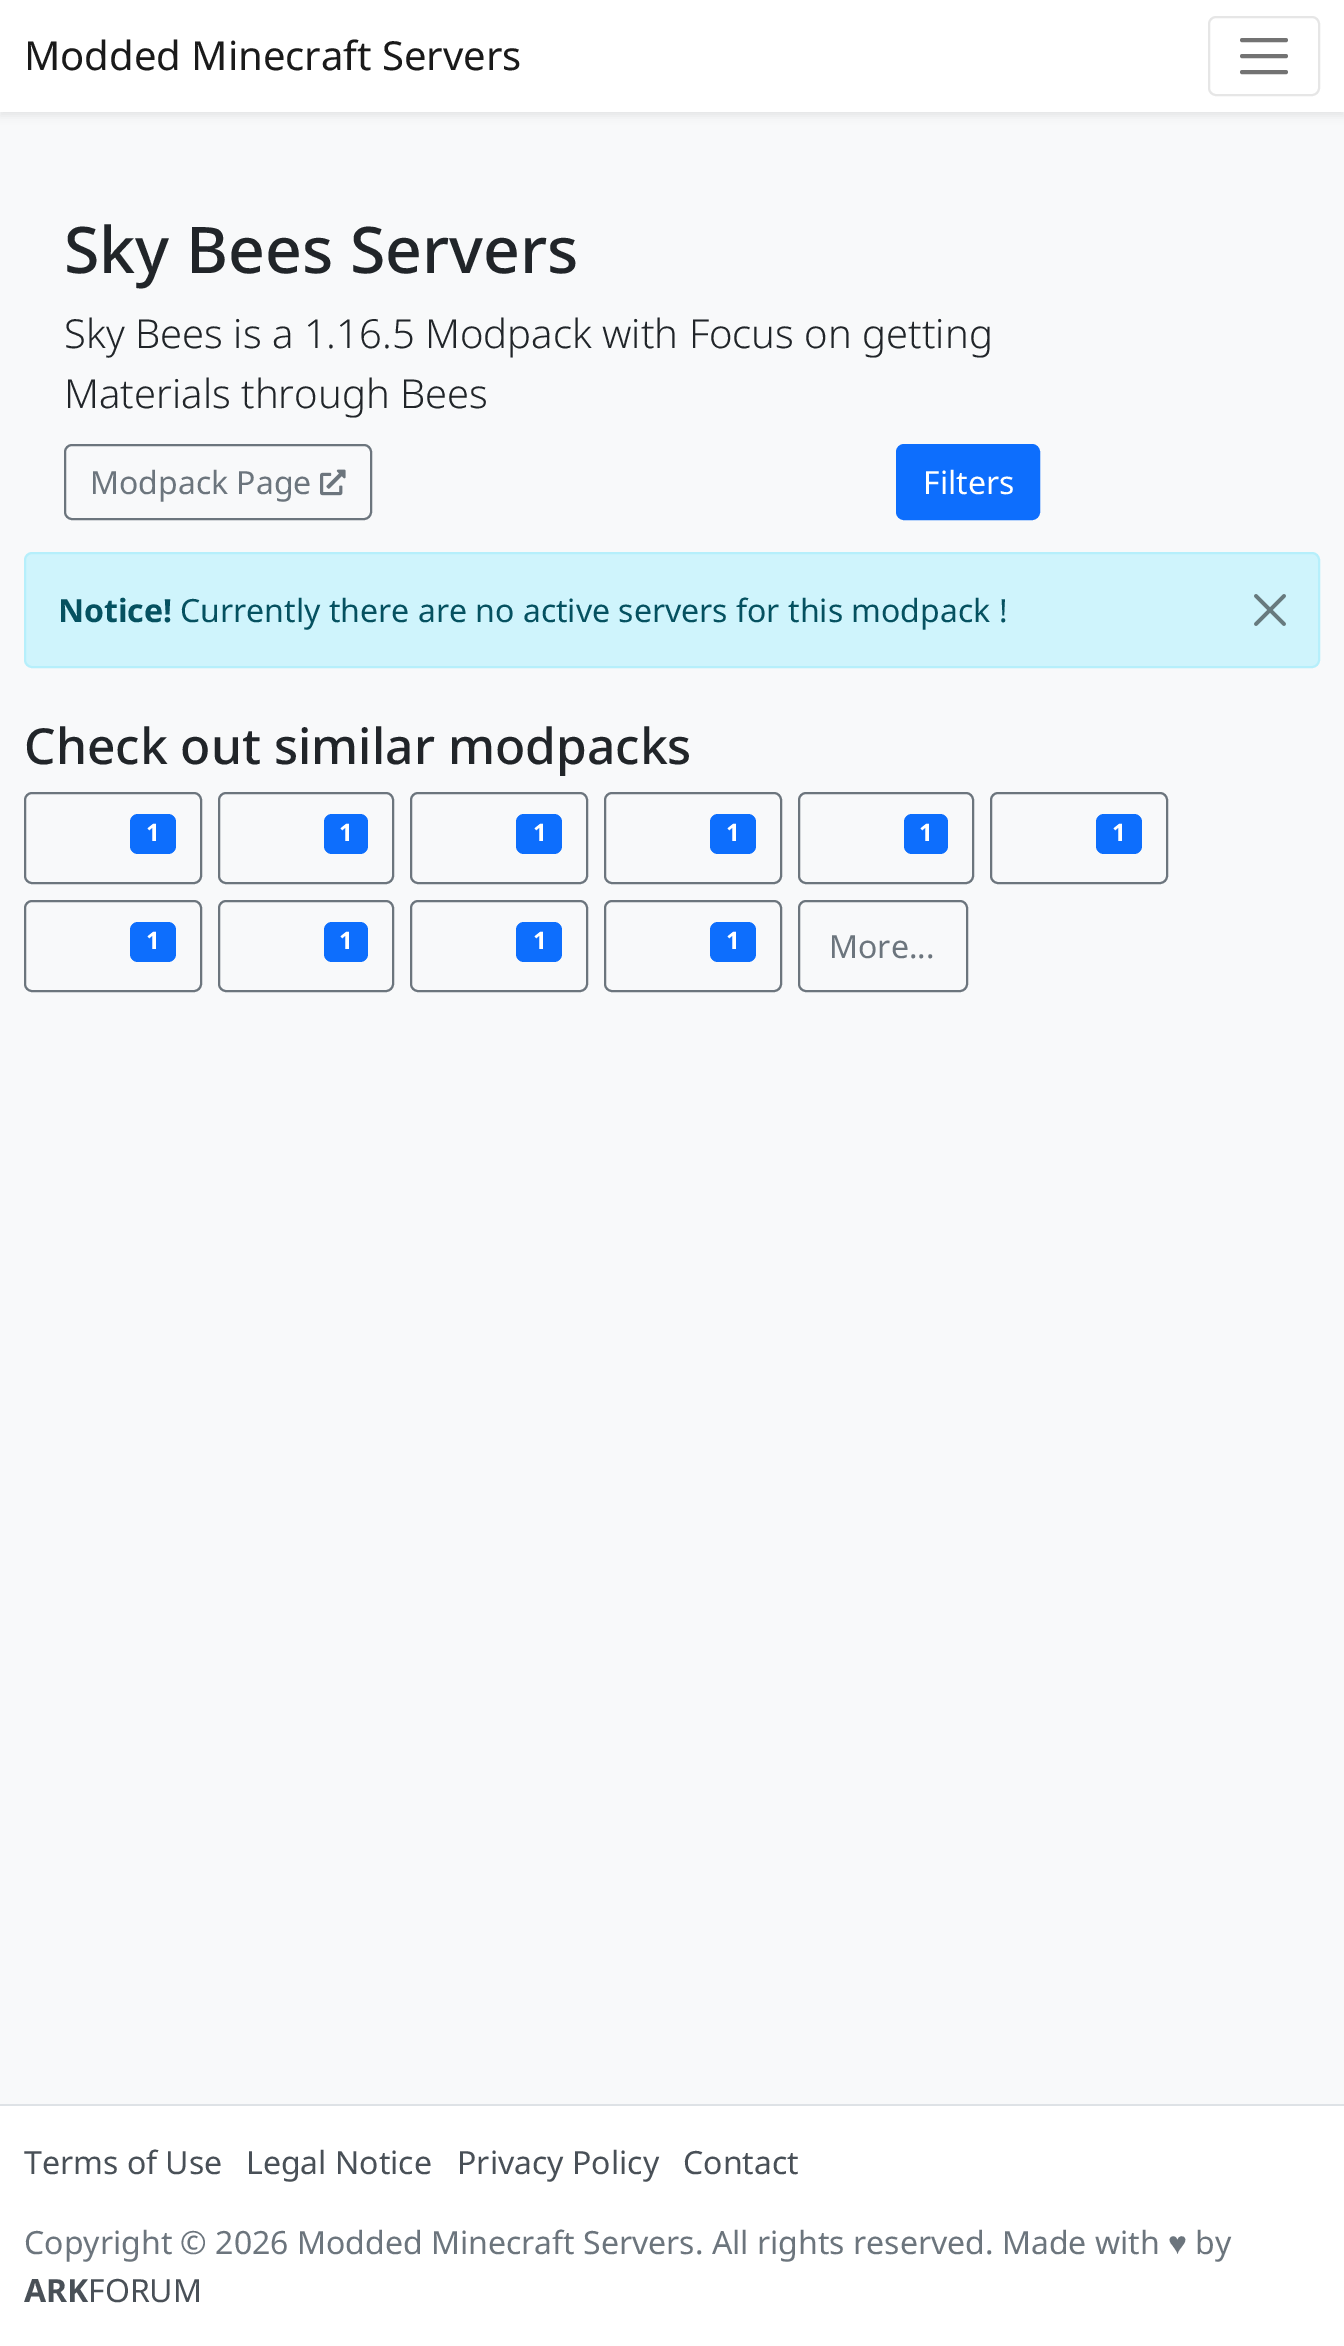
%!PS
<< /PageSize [1344 2346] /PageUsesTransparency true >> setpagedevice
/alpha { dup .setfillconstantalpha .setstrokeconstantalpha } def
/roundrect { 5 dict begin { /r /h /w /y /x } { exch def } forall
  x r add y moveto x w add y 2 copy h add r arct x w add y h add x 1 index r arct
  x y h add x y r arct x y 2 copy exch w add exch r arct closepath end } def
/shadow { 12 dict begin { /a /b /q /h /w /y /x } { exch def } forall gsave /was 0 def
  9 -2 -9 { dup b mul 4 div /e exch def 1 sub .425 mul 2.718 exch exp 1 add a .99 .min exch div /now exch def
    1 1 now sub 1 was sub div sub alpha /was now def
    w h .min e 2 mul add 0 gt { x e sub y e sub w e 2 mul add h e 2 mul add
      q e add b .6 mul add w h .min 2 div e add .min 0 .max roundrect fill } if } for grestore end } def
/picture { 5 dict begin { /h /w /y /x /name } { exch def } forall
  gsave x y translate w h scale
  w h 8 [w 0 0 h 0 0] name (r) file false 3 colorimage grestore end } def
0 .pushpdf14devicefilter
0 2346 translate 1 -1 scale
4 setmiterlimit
0.973 0.976 0.98 setrgbcolor
0 0 1344 2346 rectfill
0 setgray
0 4 1344 112 0 4 0.07 shadow
1 setgray
0 0 1344 112 rectfill
/NotoSans-Regular [40 0 0 -40 0 0] selectfont
0.102 setgray
24 70 moveto (Modded Minecraft Servers) show
0.902 setgray
2 setlinewidth
1209 17 110 78 7 roundrect stroke
0.451 setgray
4 setlinewidth
1 setlinecap
newpath 1242 40 moveto 1286 40 lineto 1242 56 moveto 1286 56 lineto 1242 72 moveto 1286 72 lineto stroke
/NotoSans-Medium [64.25 0 0 -64.25 0 0] selectfont
0.129 0.145 0.161 setrgbcolor
64 273 moveto (Sky Bees Servers) show
/NotoSans-Light [40 0 0 -40 0 0] selectfont
64 348 moveto (Sky Bees is a 1.16.5 Modpack with Focus on getting) show
64 408 moveto (Materials through Bees) show
0.424 0.459 0.49 setrgbcolor
2 setlinewidth
0 setlinecap
65 445 306 74 7 roundrect stroke
/NotoSans-Regular [32 0 0 -32 0 0] selectfont
90 494 moveto (Modpack Page) show
(img1.rgb) 320 469 26 27 picture
0.051 0.431 0.992 setrgbcolor
897 445 142 74 7 roundrect gsave fill grestore
stroke
1 setgray
923 494 moveto (Filters) show
0.812 0.957 0.988 setrgbcolor
25 553 1294 114 7 roundrect gsave fill grestore
0.714 0.937 0.984 setrgbcolor
stroke
/NotoSans-Bold [32 0 0 -32 0 0] selectfont
0.02 0.318 0.376 setrgbcolor
58 622 moveto (Notice!) show
/NotoSans-Regular [32 0 0 -32 0 0] selectfont
180 622 moveto (Currently there are no active servers for this modpack !) show
(img2.rgb) 1254 594 32 32 picture
/NotoSans-Medium [49.7 0 0 -49.7 0 0] selectfont
0.129 0.145 0.161 setrgbcolor
24 764 moveto (Check out similar modpacks) show
0.424 0.459 0.49 setrgbcolor
25 793 176 90 7 roundrect stroke
0.051 0.431 0.992 setrgbcolor
130 814 46 40 8 roundrect fill
/NotoSans-Bold [24 0 0 -24 0 0] selectfont
1 setgray
146 841 moveto (1) show
0.424 0.459 0.49 setrgbcolor
219 793 174 90 7 roundrect stroke
0.051 0.431 0.992 setrgbcolor
324 814 44 40 8 roundrect fill
1 setgray
339 841 moveto (1) show
0.424 0.459 0.49 setrgbcolor
411 793 176 90 7 roundrect stroke
0.051 0.431 0.992 setrgbcolor
516 814 46 40 8 roundrect fill
1 setgray
533 841 moveto (1) show
0.424 0.459 0.49 setrgbcolor
605 793 176 90 7 roundrect stroke
0.051 0.431 0.992 setrgbcolor
710 814 46 40 8 roundrect fill
1 setgray
726 841 moveto (1) show
0.424 0.459 0.49 setrgbcolor
799 793 174 90 7 roundrect stroke
0.051 0.431 0.992 setrgbcolor
904 814 44 40 8 roundrect fill
1 setgray
919 841 moveto (1) show
0.424 0.459 0.49 setrgbcolor
991 793 176 90 7 roundrect stroke
0.051 0.431 0.992 setrgbcolor
1096 814 46 40 8 roundrect fill
1 setgray
1112 841 moveto (1) show
0.424 0.459 0.49 setrgbcolor
25 901 176 90 7 roundrect stroke
0.051 0.431 0.992 setrgbcolor
130 922 46 40 8 roundrect fill
1 setgray
146 949 moveto (1) show
0.424 0.459 0.49 setrgbcolor
219 901 174 90 7 roundrect stroke
0.051 0.431 0.992 setrgbcolor
324 922 44 40 8 roundrect fill
1 setgray
339 949 moveto (1) show
0.424 0.459 0.49 setrgbcolor
411 901 176 90 7 roundrect stroke
0.051 0.431 0.992 setrgbcolor
516 922 46 40 8 roundrect fill
1 setgray
533 949 moveto (1) show
0.424 0.459 0.49 setrgbcolor
605 901 176 90 7 roundrect stroke
0.051 0.431 0.992 setrgbcolor
710 922 46 40 8 roundrect fill
1 setgray
726 949 moveto (1) show
0.424 0.459 0.49 setrgbcolor
799 901 168 90 7 roundrect stroke
/NotoSans-Regular [32 0 0 -32 0 0] selectfont
829 958 moveto (More...) show
1 setgray
0 2106 1344 240 rectfill
0.871 0.886 0.902 setrgbcolor
0 2104 1344 2 rectfill
0.286 0.314 0.341 setrgbcolor
24 2174 moveto (Terms of Use) show
246 2174 moveto (Legal Notice) show
457 2174 moveto (Privacy Policy) show
683 2174 moveto (Contact) show
0.424 0.459 0.49 setrgbcolor
24 2254 moveto (Copyright © 2026 Modded Minecraft Servers. All rights reserved. Made with) show
/LiberationSans-Regular [32 0 0 -32 0 0] selectfont
1168 2254 moveto (♥) show
/NotoSans-Regular [32 0 0 -32 0 0] selectfont
1195 2254 moveto (by) show
/NotoSans-Bold [32 0 0 -32 0 0] selectfont
0.286 0.314 0.341 setrgbcolor
24 2302 moveto (ARK) show
/NotoSans-Regular [32 0 0 -32 0 0] selectfont
88 2302 moveto (FORUM) show
.poppdf14devicefilter showpage
